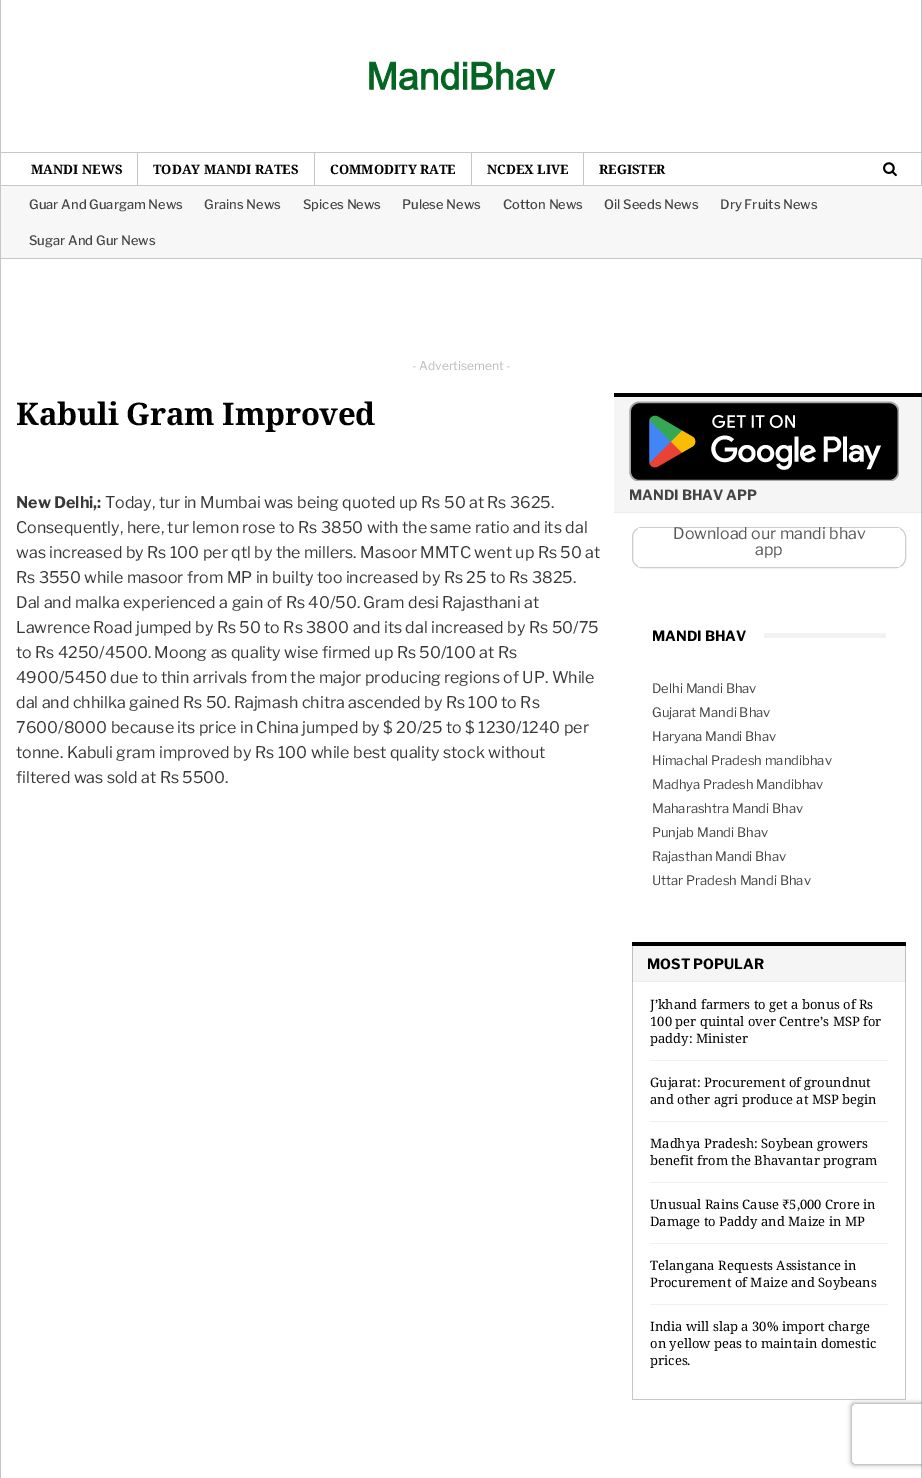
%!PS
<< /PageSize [922 1478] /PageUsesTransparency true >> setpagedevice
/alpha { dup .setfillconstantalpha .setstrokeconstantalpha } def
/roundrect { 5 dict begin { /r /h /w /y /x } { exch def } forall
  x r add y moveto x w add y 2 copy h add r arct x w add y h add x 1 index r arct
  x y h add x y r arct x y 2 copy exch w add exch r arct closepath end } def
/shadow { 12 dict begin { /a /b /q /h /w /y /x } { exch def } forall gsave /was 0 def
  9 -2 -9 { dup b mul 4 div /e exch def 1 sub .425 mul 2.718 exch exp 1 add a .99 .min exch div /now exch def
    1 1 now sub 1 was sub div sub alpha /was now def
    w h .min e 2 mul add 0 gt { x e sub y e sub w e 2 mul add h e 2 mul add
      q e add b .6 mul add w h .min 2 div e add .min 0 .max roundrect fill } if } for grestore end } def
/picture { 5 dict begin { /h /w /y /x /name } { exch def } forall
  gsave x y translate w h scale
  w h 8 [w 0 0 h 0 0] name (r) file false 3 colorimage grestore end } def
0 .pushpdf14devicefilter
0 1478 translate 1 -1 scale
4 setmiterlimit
1 setgray
0 0 922 1478 rectfill
0.929 setgray
632 981 274 1 rectfill
0.961 setgray
633 946 272 35 rectfill
0.929 setgray
614 512 308 1 rectfill
0.961 setgray
614 397 307 115 rectfill
0.769 0.776 0.784 setrgbcolor
921 0 1 1478 rectfill
0.714 0.722 0.729 setrgbcolor
921 512 1 1 rectfill
0.737 0.745 0.753 setrgbcolor
921 393 1 119 rectfill
0.769 0.776 0.784 setrgbcolor
0 0 1 1478 rectfill
(img1.rgb) 369 61 187 29 picture
1 152 920 1 rectfill
1 185 920 1 rectfill
/NotoSerif-Bold [13 0 0 -13 0 0] selectfont
0 setgray
31 174 moveto (MANDI NEWS) show
0.969 setgray
1 186 921 72 rectfill
0.769 0.776 0.784 setrgbcolor
1 258 921 1 rectfill
/LibreFranklin-Medium [13 0 0 -13 0 0] selectfont
0.267 setgray
29 209 moveto (Guar And Guargam News) show
204 209 moveto (Grains News) show
303 209 moveto (Spices News) show
402 209 moveto (Pulese News) show
503 209 moveto (Cotton News) show
604 209 moveto (Oil Seeds News) show
720 209 moveto (Dry Fruits News) show
29 245 moveto (Sugar And Gur News) show
0.769 0.776 0.784 setrgbcolor
137 153 1 33 rectfill
/NotoSerif-Bold [13 0 0 -13 0 0] selectfont
0 setgray
153 174 moveto (TODAY MANDI RATES) show
0.769 0.776 0.784 setrgbcolor
314 153 1 33 rectfill
0 setgray
330 174 moveto (COMMODITY RATE) show
0.769 0.776 0.784 setrgbcolor
471 153 1 33 rectfill
0 setgray
487 174 moveto (NCDEX LIVE) show
0.769 0.776 0.784 setrgbcolor
583 153 1 33 rectfill
0 setgray
599 174 moveto (REGISTER) show
(img2.rgb) 883 162 14 15 picture
/LibreFranklin-Regular [12 0 0 -12 0 0] selectfont
0.733 setgray
412 370 moveto (- Advertisement -) show
/NotoSerif-Bold [31 0 0 -31 0 0] selectfont
0 setgray
16 425 moveto -0.25 0 (Kabuli Gram Improved) ashow
/LibreFranklin-Bold [16 0 0 -16 0 0] selectfont
0.22 setgray
16 508 moveto (New Delhi,:) show
/LibreFranklin-Regular [16 0 0 -16 0 0] selectfont
105 508 moveto (Today, tur in Mumbai was being quoted up Rs 50 at Rs 3625.) show
16 533 moveto (Consequently, here, tur lemon rose to Rs 3850 with the same ratio and its dal) show
16 558 moveto (was increased by Rs 100 per qtl by the millers. Masoor MMTC went up Rs 50 at) show
16 583 moveto (Rs 3550 while masoor from MP in builty too increased by Rs 25 to Rs 3825.) show
16 608 moveto (Dal and malka experienced a gain of Rs 40/50. Gram desi Rajasthani at) show
16 633 moveto (Lawrence Road jumped by Rs 50 to Rs 3800 and its dal increased by Rs 50/75) show
16 658 moveto (to Rs 4250/4500. Moong as quality wise firmed up Rs 50/100 at Rs) show
16 683 moveto (4900/5450 due to thin arrivals from the major producing regions of UP. While) show
16 708 moveto (dal and chhilka gained Rs 50. Rajmash chitra ascended by Rs 100 to Rs) show
16 733 moveto (7600/8000 because its price in China jumped by $ 20/25 to $ 1230/1240 per) show
16 758 moveto (tonne. Kabuli gram improved by Rs 100 while best quality stock without) show
16 783 moveto (filtered was sold at Rs 5500.) show
0 setgray
614 393 308 4 rectfill
(img3.rgb) 629 401 270 80 picture
/LibreFranklin-Bold [14 0 0 -14 0 0] selectfont
0.267 setgray
629 500 moveto (MANDI BHAV APP) show
0.8 setgray
632.5 527.5 273 40 9.5 roundrect stroke
1 setgray
638 528 262 1 rectfill
638 566 262 1 rectfill
/LibreFranklin-Regular [16 0 0 -16 0 0] selectfont
0.333 0.353 0.333 setrgbcolor
673 539 moveto (Download our mandi bhav) show
755 555 moveto (app) show
/LibreFranklin-Bold [14 0 0 -14 0 0] selectfont
0 setgray
652 641 moveto (MANDI BHAV) show
0.949 setgray
764 633 122 5 rectfill
/LibreFranklin-Regular [13 0 0 -13 0 0] selectfont
0.267 setgray
652 693 moveto (Delhi Mandi Bhav) show
652 717 moveto (Gujarat Mandi Bhav) show
652 741 moveto (Haryana Mandi Bhav) show
652 765 moveto (Himachal Pradesh mandibhav) show
652 789 moveto (Madhya Pradesh Mandibhav) show
652 813 moveto (Maharashtra Mandi Bhav) show
652 837 moveto (Punjab Mandi Bhav) show
652 861 moveto (Rajasthan Mandi Bhav) show
652 885 moveto (Uttar Pradesh Mandi Bhav) show
gsave
newpath 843 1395 moveto 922 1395 lineto 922 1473 lineto 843 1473 lineto closepath 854 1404 moveto 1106 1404 lineto 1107 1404 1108 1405 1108 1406 curveto 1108 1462 lineto 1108 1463 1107 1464 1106 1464 curveto 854 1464 lineto 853 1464 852 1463 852 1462 curveto 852 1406 lineto 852 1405 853 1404 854 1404 curveto closepath eoclip newpath
0.502 setgray
852 1404 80 60 2 2.5 1 shadow
grestore
0.769 0.776 0.784 setrgbcolor
905 982 1 418 rectfill
0.714 0.722 0.729 setrgbcolor
905 981 1 1 rectfill
0.737 0.745 0.753 setrgbcolor
905 942 1 39 rectfill
0.769 0.776 0.784 setrgbcolor
632 1399 274 1 rectfill
632 982 1 418 rectfill
0.714 0.722 0.729 setrgbcolor
632 981 1 1 rectfill
0.737 0.745 0.753 setrgbcolor
632 942 1 39 rectfill
0 setgray
632 942 274 4 rectfill
/LibreFranklin-Bold [14 0 0 -14 0 0] selectfont
647 969 moveto (MOST POPULAR) show
0.941 setgray
650 1060 238 1 rectfill
/NotoSerif-Regular [13 0 0 -13 0 0] selectfont
0 setgray
650 1009 moveto (J’khand farmers to get a bonus of Rs) show
650 1026 moveto (100 per quintal over Centre’s MSP for) show
650 1043 moveto (paddy: Minister) show
0.941 setgray
650 1121 238 1 rectfill
0 setgray
650 1087 moveto (Gujarat: Procurement of groundnut) show
650 1104 moveto (and other agri produce at MSP begin) show
0.941 setgray
650 1182 238 1 rectfill
0 setgray
650 1148 moveto (Madhya Pradesh: Soybean growers) show
650 1165 moveto (benefit from the Bhavantar program) show
0.941 setgray
650 1243 238 1 rectfill
0 setgray
650 1209 moveto (Unusual Rains Cause ₹5,000 Crore in) show
650 1226 moveto (Damage to Paddy and Maize in MP) show
0.941 setgray
650 1304 238 1 rectfill
0 setgray
650 1270 moveto (Telangana Requests Assistance in) show
650 1287 moveto (Procurement of Maize and Soybeans) show
650 1331 moveto (India will slap a 30% import charge) show
650 1348 moveto (on yellow peas to maintain domestic) show
650 1365 moveto (prices.) show
.poppdf14devicefilter showpage
